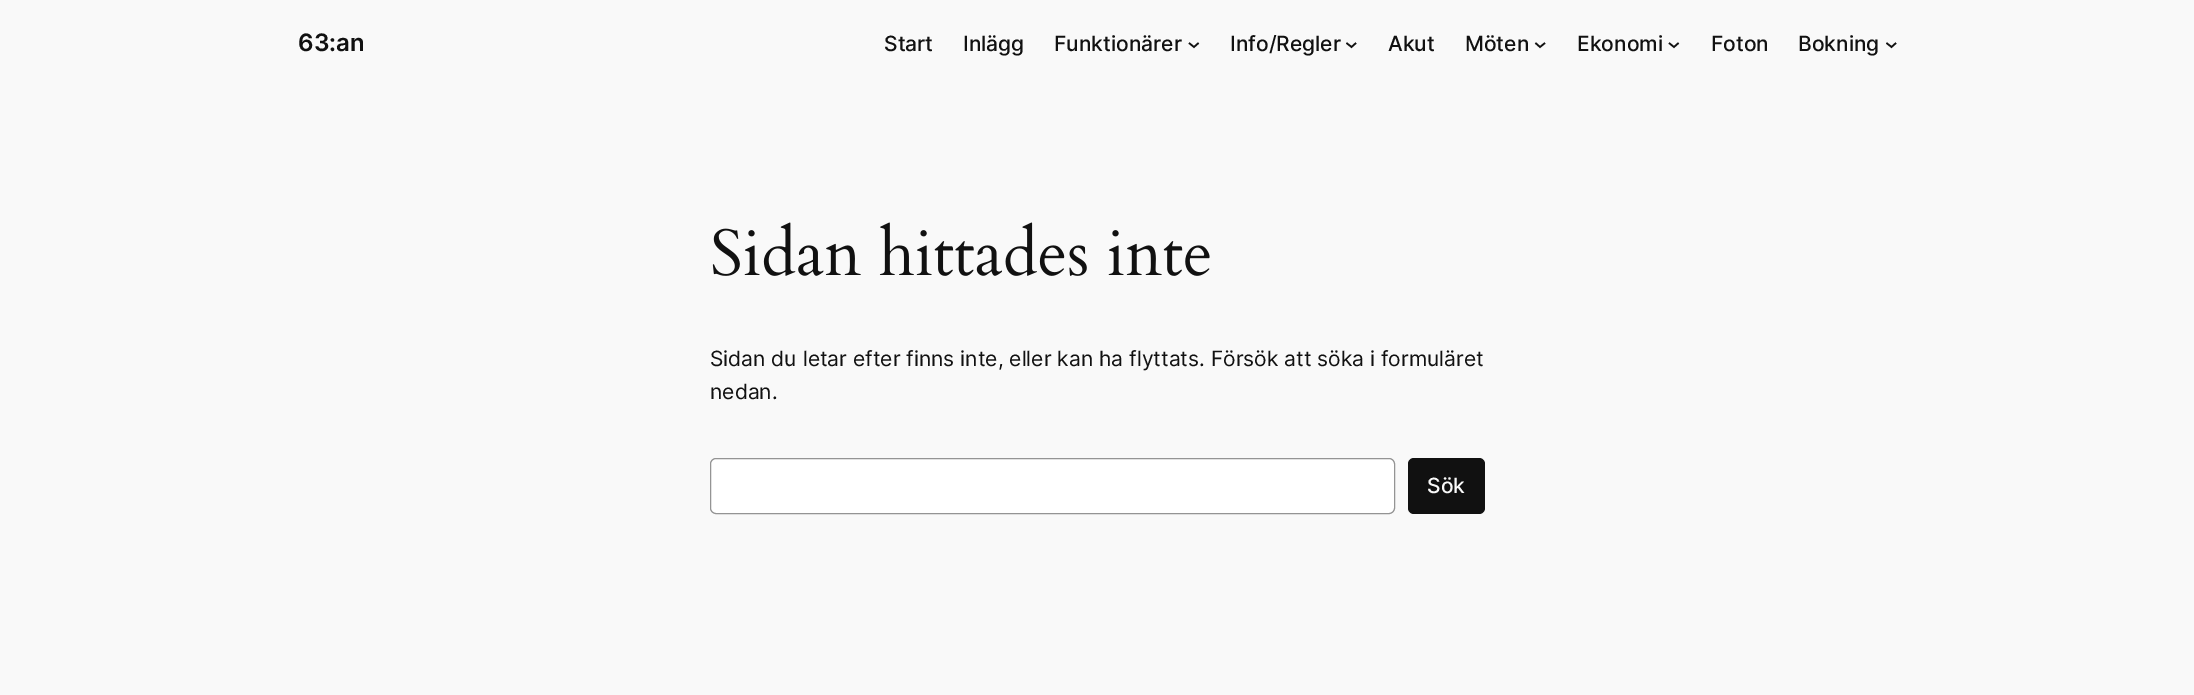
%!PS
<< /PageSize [2194 695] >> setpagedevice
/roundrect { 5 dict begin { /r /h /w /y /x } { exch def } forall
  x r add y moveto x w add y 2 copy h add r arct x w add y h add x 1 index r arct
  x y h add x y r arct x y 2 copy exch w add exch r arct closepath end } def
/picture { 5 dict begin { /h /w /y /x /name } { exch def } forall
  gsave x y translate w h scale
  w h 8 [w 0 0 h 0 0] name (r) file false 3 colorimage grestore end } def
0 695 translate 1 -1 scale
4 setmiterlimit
0.976 setgray
0 0 2194 695 rectfill
/Inter-SemiBold [24 0 0 -24 0 0] selectfont
0.067 setgray
298 51 moveto (63:an) show
/Inter-Medium [21 0 0 -21 0 0] selectfont
884 51 moveto (Start) show
963 51 moveto (Inlägg) show
1054 51 moveto (Funktionärer) show
1.6 setlinewidth
newpath 1189 43 moveto 1194 47 lineto 1198.5 43 lineto stroke
1230 51 moveto (Info/Regler) show
newpath 1346.5 43 moveto 1351.5 47 lineto 1356 43 lineto stroke
1388 51 moveto (Akut) show
1465 51 moveto (Möten) show
newpath 1535.5 43 moveto 1540 47 lineto 1545 43 lineto stroke
1577 51 moveto (Ekonomi) show
newpath 1669 43 moveto 1674 47 lineto 1678.5 43 lineto stroke
1711 51 moveto (Foton) show
1798 51 moveto (Bokning) show
newpath 1886.5 43 moveto 1891.5 47 lineto 1896 43 lineto stroke
(img1.rgb) 712 222 498 54 picture
/Inter-Regular [21 0 0 -21 0 0] selectfont
710 366 moveto (Sidan du letar efter finns inte, eller kan ha flyttats. Försök att söka i formuläret) show
710 399 moveto (nedan.) show
1 setgray
710.5 458.5 684 55 5.5 roundrect gsave fill grestore
0.58 setgray
1 setlinewidth
stroke
0.067 setgray
1408 458 77 56 6 roundrect fill
/Inter-Medium [21 0 0 -21 0 0] selectfont
0.976 setgray
1427 493 moveto (Sök) show
showpage
